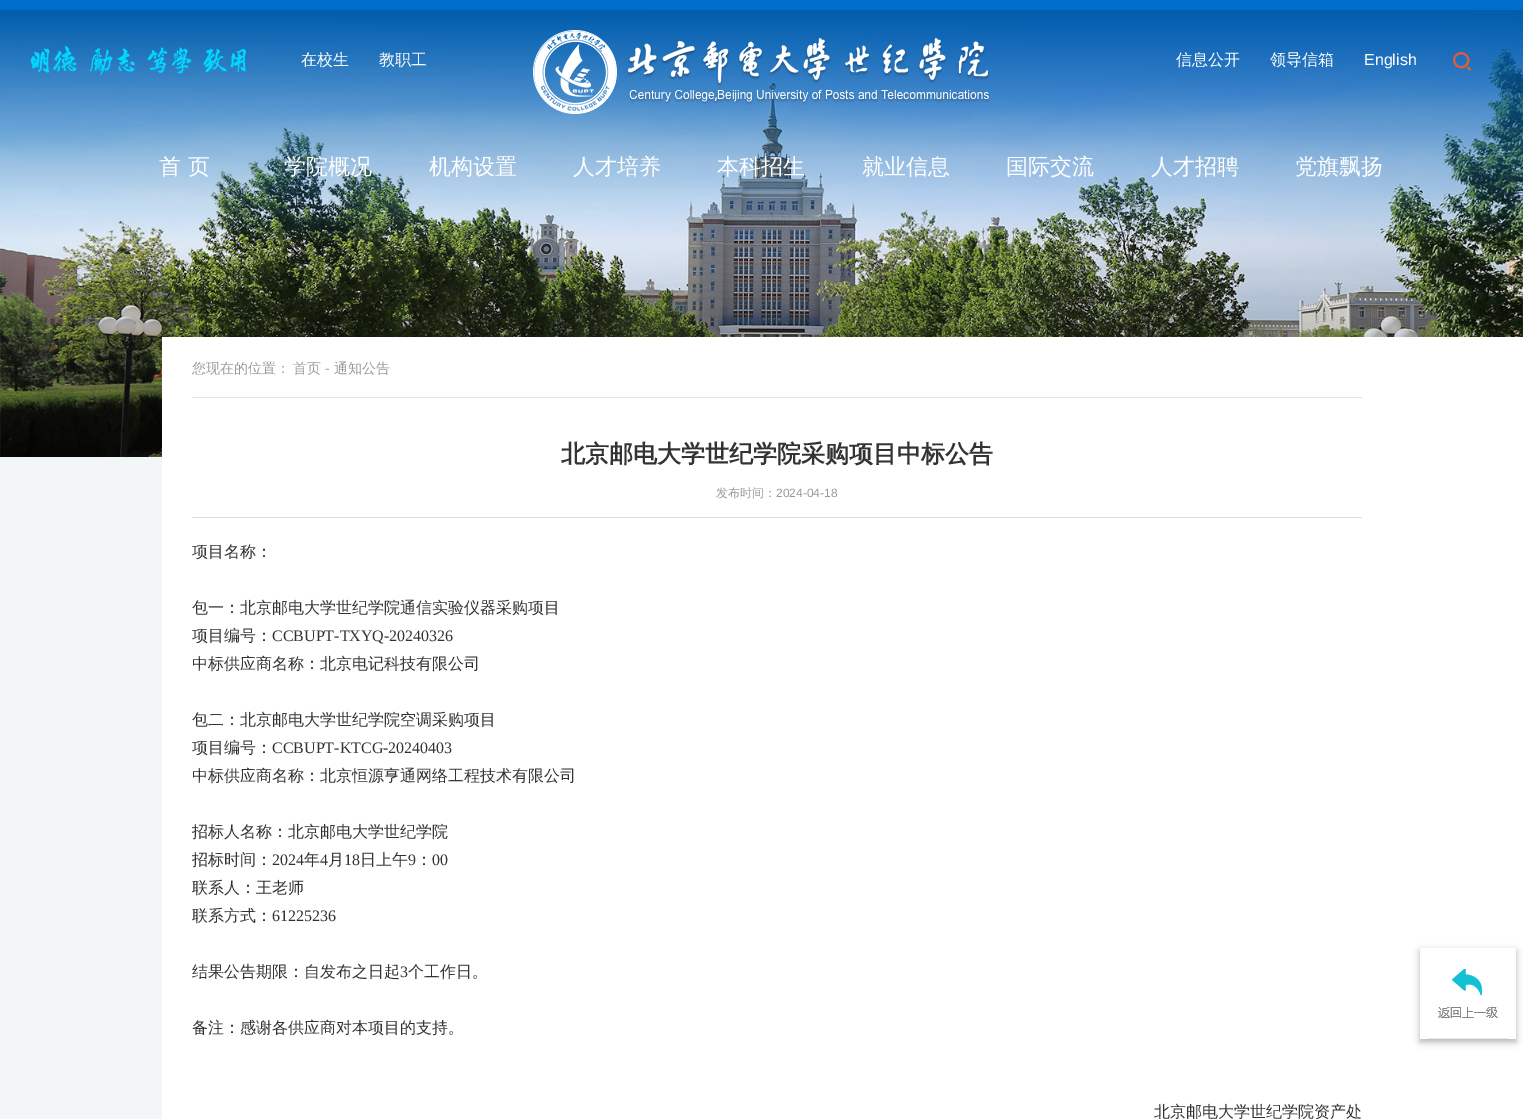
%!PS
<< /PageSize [1523 1119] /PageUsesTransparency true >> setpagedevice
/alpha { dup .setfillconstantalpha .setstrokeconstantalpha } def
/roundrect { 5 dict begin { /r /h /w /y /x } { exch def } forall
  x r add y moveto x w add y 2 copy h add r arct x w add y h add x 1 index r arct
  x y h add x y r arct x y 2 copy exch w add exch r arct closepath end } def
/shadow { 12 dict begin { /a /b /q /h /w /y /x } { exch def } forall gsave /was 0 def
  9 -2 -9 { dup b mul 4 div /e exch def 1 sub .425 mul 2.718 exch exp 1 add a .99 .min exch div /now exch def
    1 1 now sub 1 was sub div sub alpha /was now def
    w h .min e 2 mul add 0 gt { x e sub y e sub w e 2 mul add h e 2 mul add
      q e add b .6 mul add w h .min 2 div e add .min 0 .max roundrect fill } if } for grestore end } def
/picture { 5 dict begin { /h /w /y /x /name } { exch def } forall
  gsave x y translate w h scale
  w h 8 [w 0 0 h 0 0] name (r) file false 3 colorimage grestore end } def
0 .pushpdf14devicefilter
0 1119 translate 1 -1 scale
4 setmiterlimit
0.949 0.965 0.969 setrgbcolor
0 0 1523 1119 rectfill
(img1.rgb) 0 10 1523 447 picture
0 0.427 0.8 setrgbcolor
0 0 1523 10 rectfill
(img2.rgb) 30 45 216 30 picture
/WenQuanYiZenHei-Medium [16 0 0 -16 0 0] selectfont
1 setgray
301 65 moveto (在校生) show
379 65 moveto (教职工) show
1176 65 moveto (信息公开) show
1270 65 moveto (领导信箱) show
/LiberationSans-Regular [16 0 0 -16 0 0] selectfont
1364 65 moveto (English) show
(img3.rgb) 1453 52 18 19 picture
(img4.rgb) 533 30 457 84 picture
/WenQuanYiZenHei-Medium [22 0 0 -22 0 0] selectfont
159 174 moveto (首 页) show
284 174 moveto (学院概况) show
429 174 moveto (机构设置) show
573 174 moveto (人才培养) show
717 174 moveto (本科招生) show
862 174 moveto (就业信息) show
1006 174 moveto (国际交流) show
1151 174 moveto (人才招聘) show
1295 174 moveto (党旗飘扬) show
162 337 1361 782 rectfill
0.898 setgray
192 397 1170 1 rectfill
/WenQuanYiZenHei-Medium [14 0 0 -14 0 0] selectfont
0.6 setgray
192 373 moveto (您现在的位置：) show
293 373 moveto (首页) show
/LiberationSans-Regular [14 0 0 -14 0 0] selectfont
325 373 moveto (-) show
/WenQuanYiZenHei-Medium [14 0 0 -14 0 0] selectfont
334 373 moveto (通知公告) show
/WenQuanYiZenHei-Bold [24 0 0 -24 0 0] selectfont
0.2 setgray
561 462 moveto (北京邮电大学世纪学院采购项目中标公告) show
0.871 0.863 0.847 setrgbcolor
192 517 1170 1 rectfill
/WenQuanYiZenHei-Medium [12 0 0 -12 0 0] selectfont
0.6 setgray
716 497 moveto (发布时间：) show
/LiberationSans-Regular [12 0 0 -12 0 0] selectfont
776 497 moveto (2024-04-18) show
/WenQuanYiZenHei-Medium [16 0 0 -16 0 0] selectfont
0.2 setgray
192 557 moveto (项目名称：) show
192 613 moveto (包一：北京邮电大学世纪学院通信实验仪器采购项目) show
192 641 moveto (项目编号：) show
/LiberationSerif-Regular [16 0 0 -16 0 0] selectfont
272 641 moveto (CCBUPT-TXYQ-20240326) show
/WenQuanYiZenHei-Medium [16 0 0 -16 0 0] selectfont
192 669 moveto (中标供应商名称：北京电记科技有限公司) show
192 725 moveto (包二：北京邮电大学世纪学院空调采购项目) show
192 753 moveto (项目编号：) show
/LiberationSerif-Regular [16 0 0 -16 0 0] selectfont
272 753 moveto (CCBUPT-KTCG-20240403) show
/WenQuanYiZenHei-Medium [16 0 0 -16 0 0] selectfont
192 781 moveto (中标供应商名称：北京恒源亨通网络工程技术有限公司) show
gsave
192 438 1170 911 rectclip
192 837 moveto (招标人名称：北京邮电大学世纪学院) show
192 865 moveto (招标时间：) show
grestore
/LiberationSerif-Regular [16 0 0 -16 0 0] selectfont
272 865 moveto (2024) show
/WenQuanYiZenHei-Medium [16 0 0 -16 0 0] selectfont
304 865 moveto (年) show
/LiberationSerif-Regular [16 0 0 -16 0 0] selectfont
320 865 moveto (4) show
/WenQuanYiZenHei-Medium [16 0 0 -16 0 0] selectfont
328 865 moveto (月) show
/LiberationSerif-Regular [16 0 0 -16 0 0] selectfont
344 865 moveto (18) show
/WenQuanYiZenHei-Medium [16 0 0 -16 0 0] selectfont
360 865 moveto (日上午) show
/LiberationSerif-Regular [16 0 0 -16 0 0] selectfont
408 865 moveto (9) show
/WenQuanYiZenHei-Medium [16 0 0 -16 0 0] selectfont
416 865 moveto (：) show
/LiberationSerif-Regular [16 0 0 -16 0 0] selectfont
432 865 moveto (00) show
/WenQuanYiZenHei-Medium [16 0 0 -16 0 0] selectfont
192 893 moveto (联系人：王老师) show
192 921 moveto (联系方式：) show
/LiberationSerif-Regular [16 0 0 -16 0 0] selectfont
272 921 moveto (61225236) show
/WenQuanYiZenHei-Medium [16 0 0 -16 0 0] selectfont
192 977 moveto (结果公告期限：自发布之日起) show
/LiberationSerif-Regular [16 0 0 -16 0 0] selectfont
400 977 moveto (3) show
/WenQuanYiZenHei-Medium [16 0 0 -16 0 0] selectfont
408 977 moveto (个工作日。) show
192 1033 moveto (备注：感谢各供应商对本项目的支持。) show
1154 1117 moveto (北京邮电大学世纪学院资产处) show
gsave
newpath 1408 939 moveto 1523 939 lineto 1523 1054 lineto 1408 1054 lineto closepath 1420 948 moveto 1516 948 lineto 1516 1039 lineto 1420 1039 lineto closepath eoclip newpath
0 setgray
1420 951 96 91 0 3.5 0.3 shadow
grestore
(img5.rgb) 1438 969 60 49 picture
0.898 setgray
1428 1038 80 1 rectfill
.poppdf14devicefilter showpage
